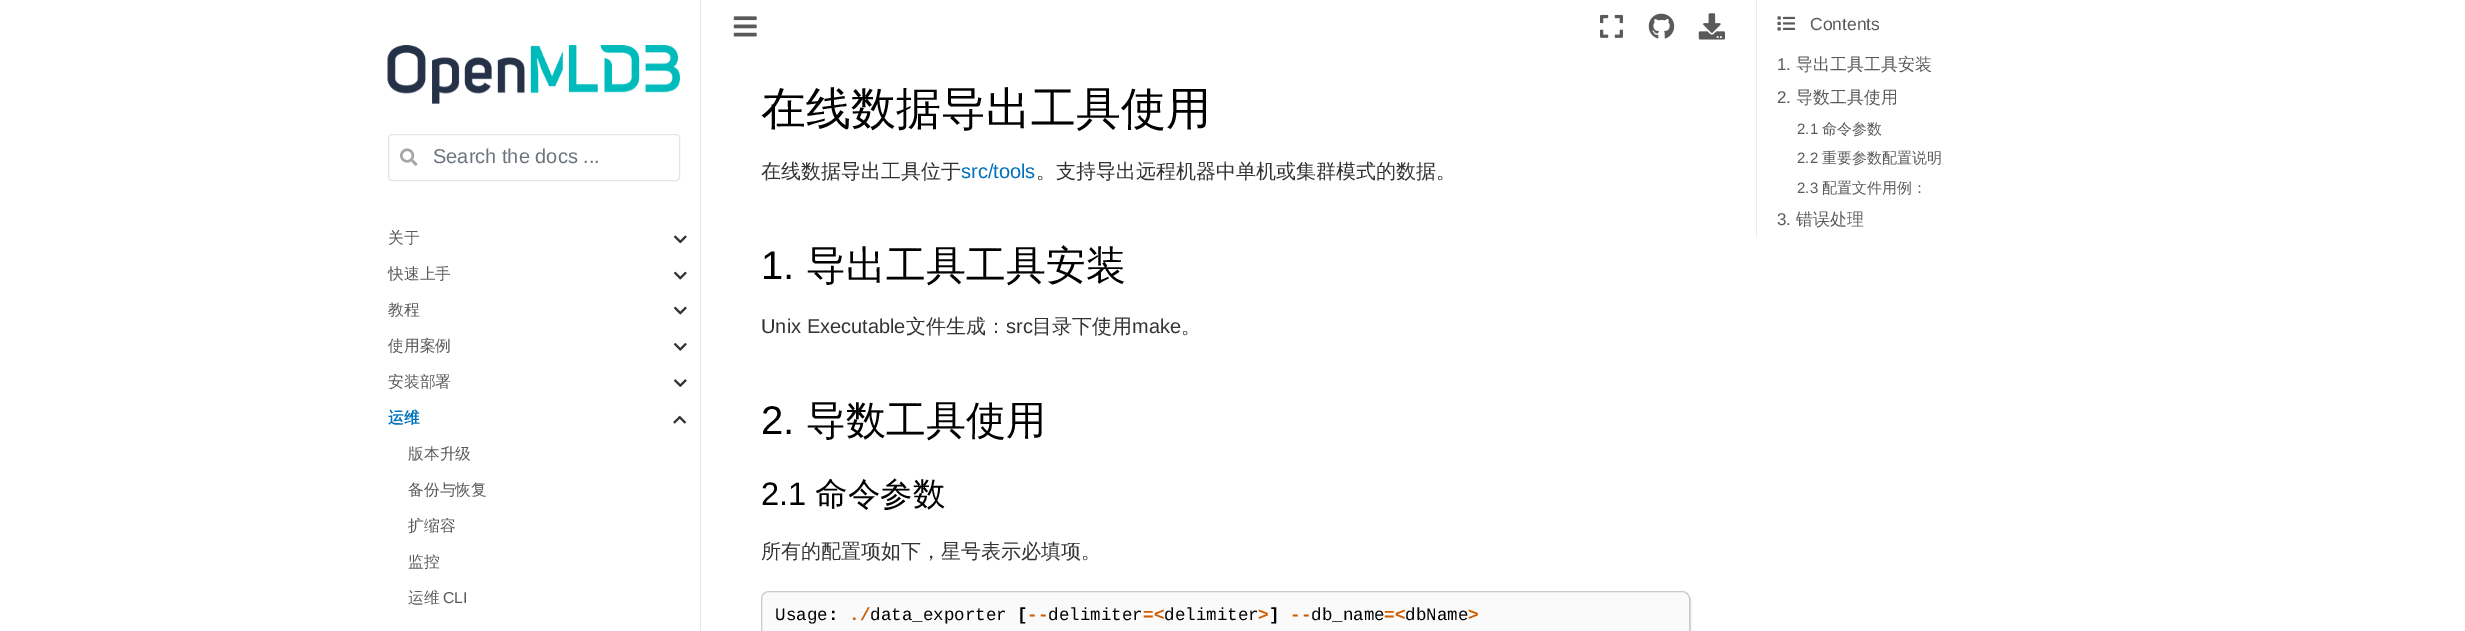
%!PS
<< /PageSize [2465 631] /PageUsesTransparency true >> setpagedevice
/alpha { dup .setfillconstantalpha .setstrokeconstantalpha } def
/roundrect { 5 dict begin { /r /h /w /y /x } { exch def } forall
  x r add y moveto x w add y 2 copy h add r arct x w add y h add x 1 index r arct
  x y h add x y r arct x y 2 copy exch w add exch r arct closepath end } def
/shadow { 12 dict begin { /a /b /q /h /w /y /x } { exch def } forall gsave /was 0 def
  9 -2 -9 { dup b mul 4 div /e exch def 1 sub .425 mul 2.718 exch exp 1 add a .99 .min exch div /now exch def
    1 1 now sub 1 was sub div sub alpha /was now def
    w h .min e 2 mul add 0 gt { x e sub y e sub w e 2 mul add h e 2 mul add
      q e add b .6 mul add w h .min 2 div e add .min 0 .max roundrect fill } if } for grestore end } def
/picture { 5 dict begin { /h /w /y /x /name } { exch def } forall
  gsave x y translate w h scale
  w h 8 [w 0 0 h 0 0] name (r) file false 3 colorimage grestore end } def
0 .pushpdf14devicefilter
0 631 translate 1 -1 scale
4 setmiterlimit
1 setgray
0 0 2465 631 rectfill
0.902 setgray
700 0 1 631 rectfill
(img1.rgb) 387 45 293 59 picture
0.898 setgray
388.5 134.5 291 46 3.5 roundrect stroke
(img2.rgb) 400 148 18 18 picture
/LiberationSans-Regular [20 0 0 -20 0 0] selectfont
0.424 0.459 0.49 setrgbcolor
433 163 moveto (Search the docs ...) show
/WenQuanYiZenHei-Medium [15.75 0 0 -15.75 0 0] selectfont
0.353 setgray
388 243 moveto (关于) show
(img3.rgb) 674 235 13 9 picture
388 279 moveto (快速上手) show
(img4.rgb) 674 271 13 9 picture
388 315 moveto (教程) show
(img4.rgb) 674 306 13 9 picture
388 351 moveto (使用案例) show
(img5.rgb) 674 343 13 8 picture
388 387 moveto (安装部署) show
(img6.rgb) 674 379 13 8 picture
/WenQuanYiZenHei-Bold [15.75 0 0 -15.75 0 0] selectfont
0 0.443 0.737 setrgbcolor
388 423 moveto (运维) show
(img7.rgb) 673 415 13 9 picture
/WenQuanYiZenHei-Medium [15.75 0 0 -15.75 0 0] selectfont
0.353 setgray
408 459 moveto (版本升级) show
408 495 moveto (备份与恢复) show
408 531 moveto (扩缩容) show
408 567 moveto (监控) show
408 603 moveto (运维) show
/LiberationSans-Regular [15.75 0 0 -15.75 0 0] selectfont
443 603 moveto (CLI) show
/WenQuanYiZenHei-Medium [45 0 0 -45 0 0] selectfont
0 setgray
761 124 moveto (在线数据导出工具使用) show
/WenQuanYiZenHei-Medium [20 0 0 -20 0 0] selectfont
0.2 setgray
761 178 moveto (在线数据导出工具位于) show
/LiberationSans-Regular [20 0 0 -20 0 0] selectfont
0 0.443 0.737 setrgbcolor
961 178 moveto (src/tools) show
/WenQuanYiZenHei-Medium [20 0 0 -20 0 0] selectfont
0.2 setgray
1036 178 moveto (。支持导出远程机器中单机或集群模式的数据。) show
/LiberationSans-Regular [40 0 0 -40 0 0] selectfont
0 setgray
761 279 moveto (1.) show
/WenQuanYiZenHei-Medium [40 0 0 -40 0 0] selectfont
806 279 moveto (导出工具工具安装) show
/LiberationSans-Regular [20 0 0 -20 0 0] selectfont
0.2 setgray
761 333 moveto (Unix Executable) show
/WenQuanYiZenHei-Medium [20 0 0 -20 0 0] selectfont
906 333 moveto (文件生成：) show
/LiberationSans-Regular [20 0 0 -20 0 0] selectfont
1006 333 moveto (src) show
/WenQuanYiZenHei-Medium [20 0 0 -20 0 0] selectfont
1032 333 moveto (目录下使用) show
/LiberationSans-Regular [20 0 0 -20 0 0] selectfont
1132 333 moveto (make) show
/WenQuanYiZenHei-Medium [20 0 0 -20 0 0] selectfont
1181 333 moveto (。) show
/LiberationSans-Regular [40 0 0 -40 0 0] selectfont
0 setgray
761 434 moveto (2.) show
/WenQuanYiZenHei-Medium [40 0 0 -40 0 0] selectfont
806 434 moveto (导数工具使用) show
/LiberationSans-Regular [32.5 0 0 -32.5 0 0] selectfont
761 505 moveto (2.1) show
/WenQuanYiZenHei-Medium [32.5 0 0 -32.5 0 0] selectfont
815 505 moveto (命令参数) show
/WenQuanYiZenHei-Medium [20 0 0 -20 0 0] selectfont
0.2 setgray
761 558 moveto (所有的配置项如下，星号表示必填项。) show
0.847 setgray
763 593 928 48 8 0.5 1 shadow
0.98 setgray
761.5 591.5 928 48 7.5 roundrect gsave fill grestore
0.788 setgray
stroke
/LiberationMono-Regular [17.5 0 0 -17.5 0 0] selectfont
0 setgray
775 620 moveto (Usage) show
/LiberationMono-Bold [17.5 0 0 -17.5 0 0] selectfont
828 620 moveto (:) show
0.808 0.361 0 setrgbcolor
849 620 moveto (./) show
/LiberationMono-Regular [17.5 0 0 -17.5 0 0] selectfont
0 setgray
870 620 moveto (data_exporter) show
/LiberationMono-Bold [17.5 0 0 -17.5 0 0] selectfont
1017 620 moveto ([) show
0.808 0.361 0 setrgbcolor
1027 620 moveto (--) show
/LiberationMono-Regular [17.5 0 0 -17.5 0 0] selectfont
0 setgray
1048 620 moveto (delimiter) show
/LiberationMono-Bold [17.5 0 0 -17.5 0 0] selectfont
0.808 0.361 0 setrgbcolor
1143 620 moveto (=<) show
/LiberationMono-Regular [17.5 0 0 -17.5 0 0] selectfont
0 setgray
1164 620 moveto (delimiter) show
/LiberationMono-Bold [17.5 0 0 -17.5 0 0] selectfont
0.808 0.361 0 setrgbcolor
1258 620 moveto (>) show
0 setgray
1269 620 moveto (]) show
0.808 0.361 0 setrgbcolor
1290 620 moveto (--) show
/LiberationMono-Regular [17.5 0 0 -17.5 0 0] selectfont
0 setgray
1311 620 moveto (db_name) show
/LiberationMono-Bold [17.5 0 0 -17.5 0 0] selectfont
0.808 0.361 0 setrgbcolor
1384 620 moveto (=<) show
/LiberationMono-Regular [17.5 0 0 -17.5 0 0] selectfont
0 setgray
1405 620 moveto (dbName) show
/LiberationMono-Bold [17.5 0 0 -17.5 0 0] selectfont
0.808 0.361 0 setrgbcolor
1468 620 moveto (>) show
(img8.rgb) 733 16 24 21 picture
(img9.rgb) 1600 14 23 24 picture
(img10.rgb) 1648 13 27 26 picture
(img11.rgb) 1698 13 27 27 picture
0.933 setgray
1756 0 1 238 rectfill
(img12.rgb) 1777 16 18 15 picture
/LiberationSans-Regular [17.5 0 0 -17.5 0 0] selectfont
0.353 setgray
1810 30 moveto (Contents) show
/LiberationSans-Regular [17 0 0 -17 0 0] selectfont
1777 70 moveto (1.) show
/WenQuanYiZenHei-Medium [17 0 0 -17 0 0] selectfont
1796 70 moveto (导出工具工具安装) show
/LiberationSans-Regular [17 0 0 -17 0 0] selectfont
1777 103 moveto (2.) show
/WenQuanYiZenHei-Medium [17 0 0 -17 0 0] selectfont
1796 103 moveto (导数工具使用) show
/LiberationSans-Regular [15 0 0 -15 0 0] selectfont
1797 134 moveto (2.1) show
/WenQuanYiZenHei-Medium [15 0 0 -15 0 0] selectfont
1822 134 moveto (命令参数) show
/LiberationSans-Regular [15 0 0 -15 0 0] selectfont
1797 163 moveto (2.2) show
/WenQuanYiZenHei-Medium [15 0 0 -15 0 0] selectfont
1822 163 moveto (重要参数配置说明) show
/LiberationSans-Regular [15 0 0 -15 0 0] selectfont
1797 193 moveto (2.3) show
/WenQuanYiZenHei-Medium [15 0 0 -15 0 0] selectfont
1822 193 moveto (配置文件用例：) show
/LiberationSans-Regular [17 0 0 -17 0 0] selectfont
1777 225 moveto (3.) show
/WenQuanYiZenHei-Medium [17 0 0 -17 0 0] selectfont
1796 225 moveto (错误处理) show
.poppdf14devicefilter showpage
